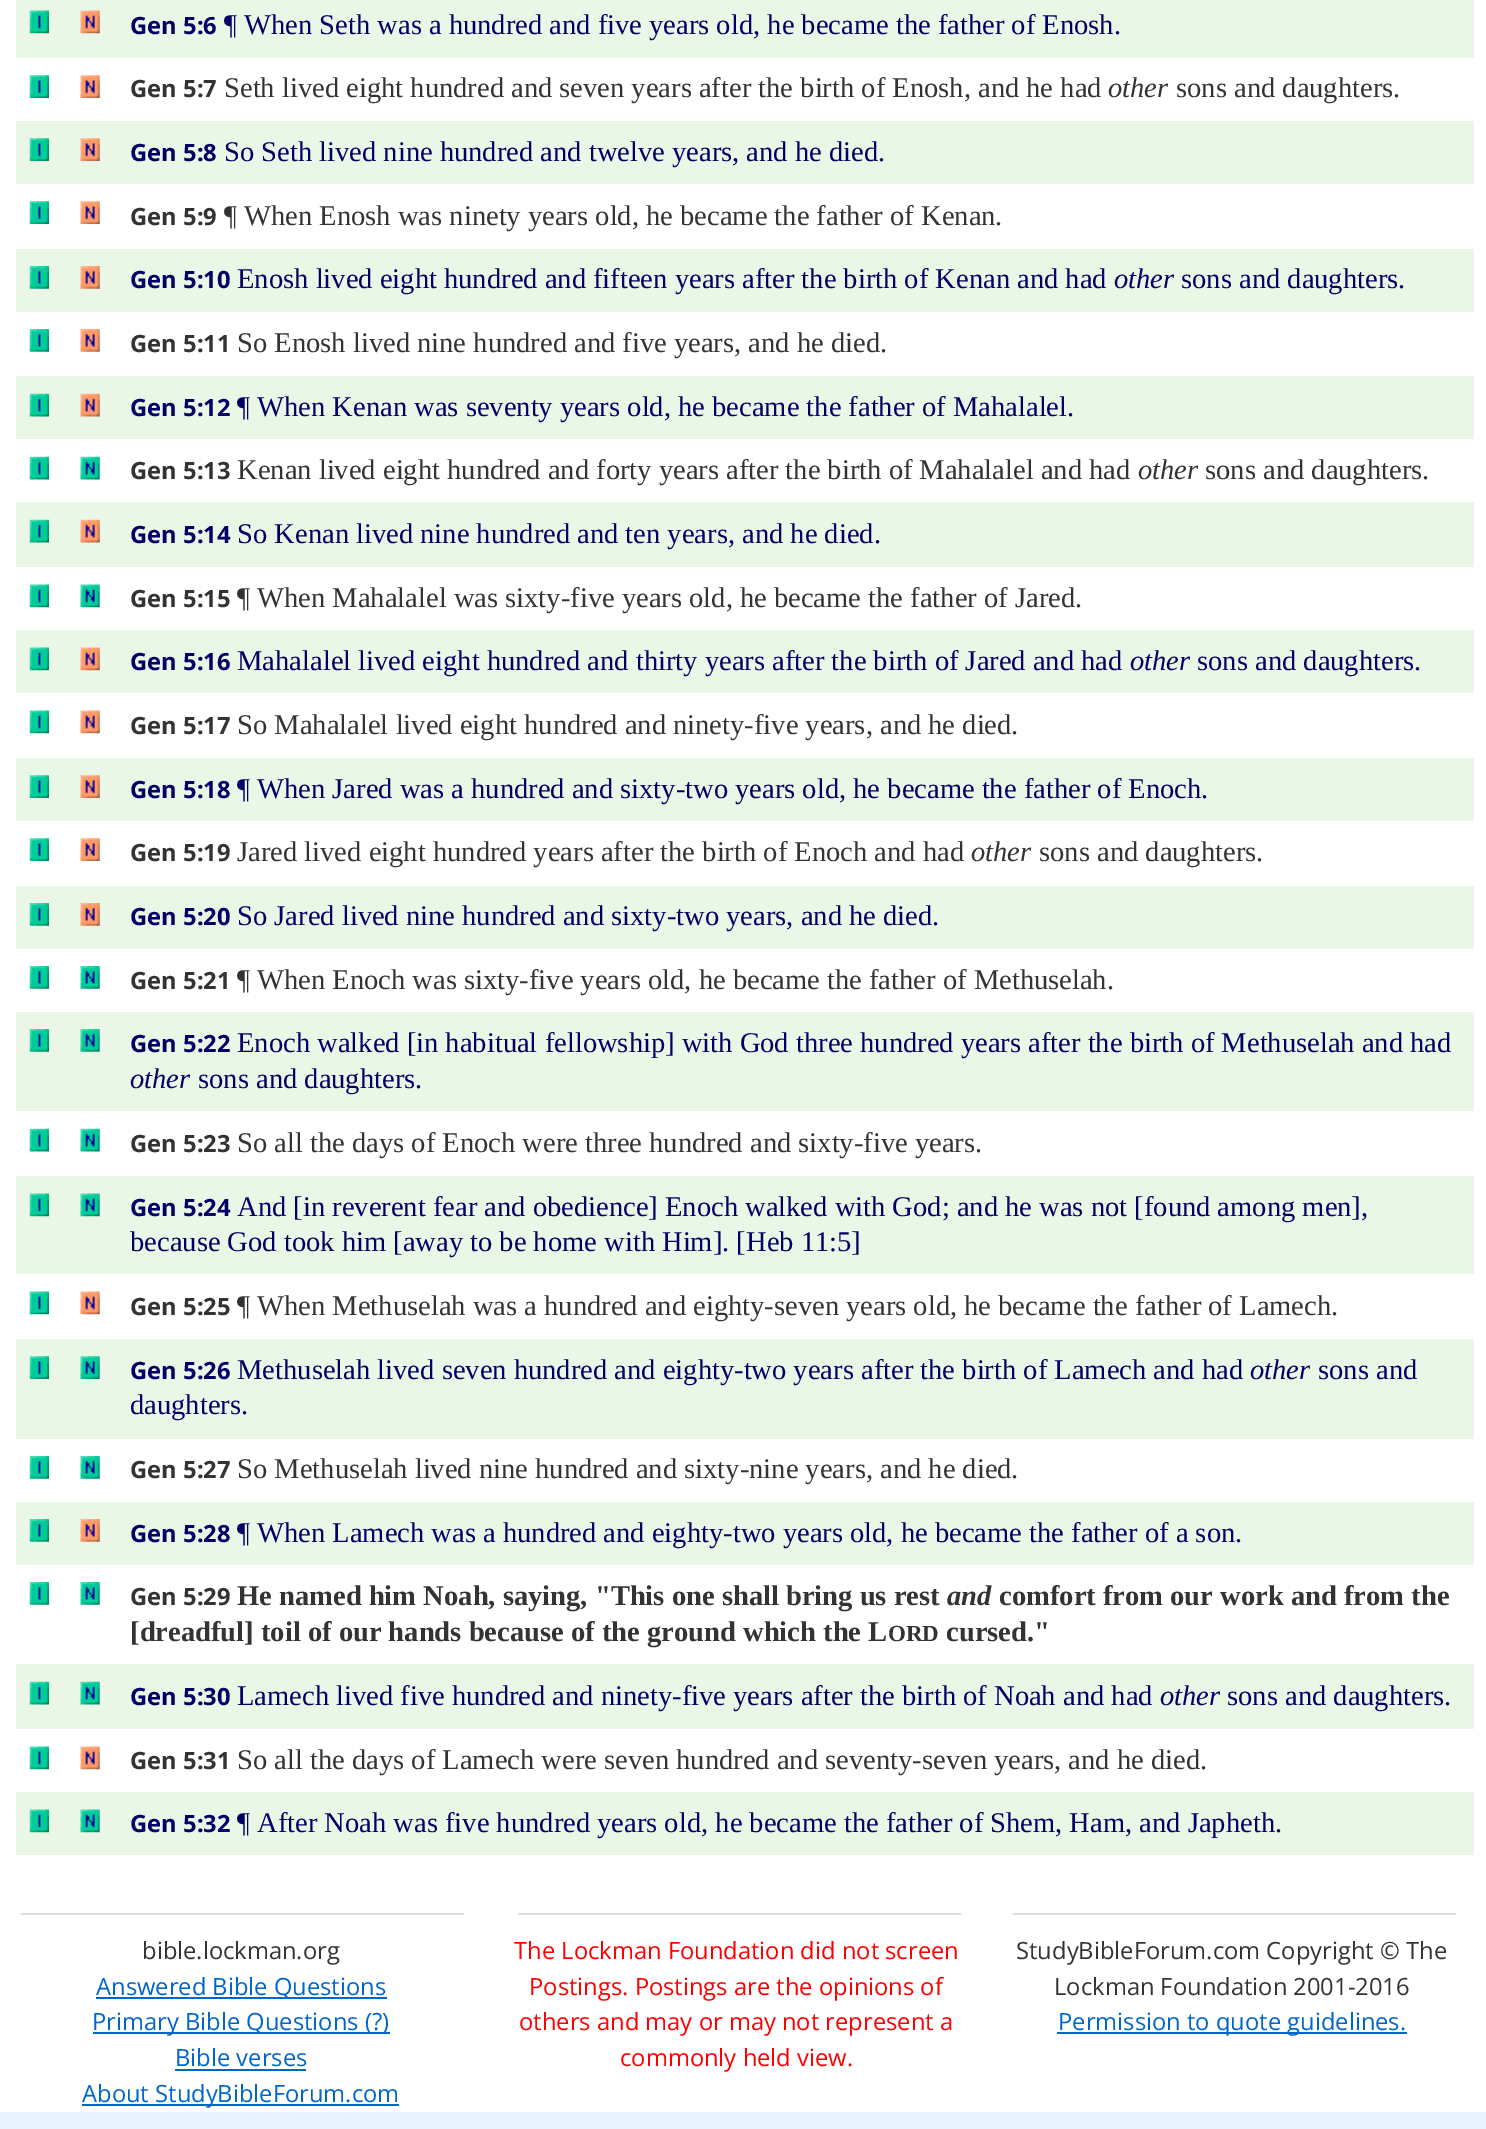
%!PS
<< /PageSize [1486 2129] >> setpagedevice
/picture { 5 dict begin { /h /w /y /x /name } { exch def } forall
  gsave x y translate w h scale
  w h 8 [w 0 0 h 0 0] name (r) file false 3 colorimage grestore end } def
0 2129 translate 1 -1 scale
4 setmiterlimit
0.918 0.945 1 setrgbcolor
0 0 1486 2129 rectfill
1 setgray
0 0 1486 2112 rectfill
0.922 0.969 0.902 setrgbcolor
16 0 1458 58 rectfill
(img1.rgb) 29 10 20 24 picture
(img2.rgb) 80 10 20 24 picture
/OpenSans-Bold [23.75 0 0 -23.75 0 0] selectfont
0 0 0.4 setrgbcolor
130 34 moveto (Gen 5:6) show
/LiberationSerif-Regular [28.55 0 0 -28.55 0 0] selectfont
224 34 moveto (¶ When Seth was a hundred and five years old, he became the father of Enosh.) show
(img3.rgb) 29 75 20 23 picture
(img4.rgb) 80 75 20 23 picture
/OpenSans-Bold [23.75 0 0 -23.75 0 0] selectfont
0.2 setgray
130 97 moveto (Gen 5:7) show
/LiberationSerif-Regular [28.55 0 0 -28.55 0 0] selectfont
224 97 moveto (Seth lived eight hundred and seven years after the birth of Enosh, and he had) show
/LiberationSerif-Italic [28.55 0 0 -28.55 0 0] selectfont
1108 97 moveto (other) show
/LiberationSerif-Regular [28.55 0 0 -28.55 0 0] selectfont
1176 97 moveto (sons and daughters.) show
0.922 0.969 0.902 setrgbcolor
16 121 1458 63 rectfill
(img5.rgb) 29 138 20 23 picture
(img6.rgb) 80 138 20 23 picture
/OpenSans-Bold [23.75 0 0 -23.75 0 0] selectfont
0 0 0.4 setrgbcolor
130 161 moveto (Gen 5:8) show
/LiberationSerif-Regular [28.55 0 0 -28.55 0 0] selectfont
224 161 moveto (So Seth lived nine hundred and twelve years, and he died.) show
(img3.rgb) 29 201 20 23 picture
(img4.rgb) 80 201 20 23 picture
/OpenSans-Bold [23.75 0 0 -23.75 0 0] selectfont
0.2 setgray
130 225 moveto (Gen 5:9) show
/LiberationSerif-Regular [28.55 0 0 -28.55 0 0] selectfont
224 225 moveto (¶ When Enosh was ninety years old, he became the father of Kenan.) show
0.922 0.969 0.902 setrgbcolor
16 249 1458 63 rectfill
(img7.rgb) 29 266 20 23 picture
(img8.rgb) 80 266 20 23 picture
/OpenSans-Bold [23.75 0 0 -23.75 0 0] selectfont
0 0 0.4 setrgbcolor
130 288 moveto (Gen 5:10) show
/LiberationSerif-Regular [28.55 0 0 -28.55 0 0] selectfont
237 288 moveto (Enosh lived eight hundred and fifteen years after the birth of Kenan and had) show
/LiberationSerif-Italic [28.55 0 0 -28.55 0 0] selectfont
1114 288 moveto (other) show
/LiberationSerif-Regular [28.55 0 0 -28.55 0 0] selectfont
1181 288 moveto (sons and daughters.) show
(img9.rgb) 29 329 20 23 picture
(img10.rgb) 80 329 20 23 picture
/OpenSans-Bold [23.75 0 0 -23.75 0 0] selectfont
0.2 setgray
130 352 moveto (Gen 5:11) show
/LiberationSerif-Regular [28.55 0 0 -28.55 0 0] selectfont
237 352 moveto (So Enosh lived nine hundred and five years, and he died.) show
0.922 0.969 0.902 setrgbcolor
16 376 1458 63 rectfill
(img11.rgb) 29 393 20 24 picture
(img12.rgb) 80 393 20 24 picture
/OpenSans-Bold [23.75 0 0 -23.75 0 0] selectfont
0 0 0.4 setrgbcolor
130 416 moveto (Gen 5:12) show
/LiberationSerif-Regular [28.55 0 0 -28.55 0 0] selectfont
237 416 moveto (¶ When Kenan was seventy years old, he became the father of Mahalalel.) show
(img13.rgb) 29 456 20 24 picture
(img14.rgb) 80 456 20 24 picture
/OpenSans-Bold [23.75 0 0 -23.75 0 0] selectfont
0.2 setgray
130 479 moveto (Gen 5:13) show
/LiberationSerif-Regular [28.55 0 0 -28.55 0 0] selectfont
237 479 moveto (Kenan lived eight hundred and forty years after the birth of Mahalalel and had) show
/LiberationSerif-Italic [28.55 0 0 -28.55 0 0] selectfont
1138 479 moveto (other) show
/LiberationSerif-Regular [28.55 0 0 -28.55 0 0] selectfont
1205 479 moveto (sons and daughters.) show
0.922 0.969 0.902 setrgbcolor
16 502 1458 65 rectfill
(img11.rgb) 29 519 20 24 picture
(img12.rgb) 80 519 20 24 picture
/OpenSans-Bold [23.75 0 0 -23.75 0 0] selectfont
0 0 0.4 setrgbcolor
130 543 moveto (Gen 5:14) show
/LiberationSerif-Regular [28.55 0 0 -28.55 0 0] selectfont
237 543 moveto (So Kenan lived nine hundred and ten years, and he died.) show
(img15.rgb) 29 584 20 24 picture
(img16.rgb) 80 584 20 24 picture
/OpenSans-Bold [23.75 0 0 -23.75 0 0] selectfont
0.2 setgray
130 607 moveto (Gen 5:15) show
/LiberationSerif-Regular [28.55 0 0 -28.55 0 0] selectfont
237 607 moveto (¶ When Mahalalel was sixty-five years old, he became the father of Jared.) show
0.922 0.969 0.902 setrgbcolor
16 630 1458 63 rectfill
(img1.rgb) 29 647 20 24 picture
(img2.rgb) 80 647 20 24 picture
/OpenSans-Bold [23.75 0 0 -23.75 0 0] selectfont
0 0 0.4 setrgbcolor
130 670 moveto (Gen 5:16) show
/LiberationSerif-Regular [28.55 0 0 -28.55 0 0] selectfont
237 670 moveto (Mahalalel lived eight hundred and thirty years after the birth of Jared and had) show
/LiberationSerif-Italic [28.55 0 0 -28.55 0 0] selectfont
1130 670 moveto (other) show
/LiberationSerif-Regular [28.55 0 0 -28.55 0 0] selectfont
1197 670 moveto (sons and daughters.) show
(img17.rgb) 29 710 20 24 picture
(img18.rgb) 80 710 20 24 picture
/OpenSans-Bold [23.75 0 0 -23.75 0 0] selectfont
0.2 setgray
130 734 moveto (Gen 5:17) show
/LiberationSerif-Regular [28.55 0 0 -28.55 0 0] selectfont
237 734 moveto (So Mahalalel lived eight hundred and ninety-five years, and he died.) show
0.922 0.969 0.902 setrgbcolor
16 758 1458 63 rectfill
(img5.rgb) 29 775 20 23 picture
(img6.rgb) 80 775 20 23 picture
/OpenSans-Bold [23.75 0 0 -23.75 0 0] selectfont
0 0 0.4 setrgbcolor
130 798 moveto (Gen 5:18) show
/LiberationSerif-Regular [28.55 0 0 -28.55 0 0] selectfont
237 798 moveto (¶ When Jared was a hundred and sixty-two years old, he became the father of Enoch.) show
(img3.rgb) 29 838 20 23 picture
(img4.rgb) 80 838 20 23 picture
/OpenSans-Bold [23.75 0 0 -23.75 0 0] selectfont
0.2 setgray
130 861 moveto (Gen 5:19) show
/LiberationSerif-Regular [28.55 0 0 -28.55 0 0] selectfont
237 861 moveto (Jared lived eight hundred years after the birth of Enoch and had) show
/LiberationSerif-Italic [28.55 0 0 -28.55 0 0] selectfont
971 861 moveto (other) show
/LiberationSerif-Regular [28.55 0 0 -28.55 0 0] selectfont
1039 861 moveto (sons and daughters.) show
0.922 0.969 0.902 setrgbcolor
16 886 1458 63 rectfill
(img7.rgb) 29 903 20 23 picture
(img8.rgb) 80 903 20 23 picture
/OpenSans-Bold [23.75 0 0 -23.75 0 0] selectfont
0 0 0.4 setrgbcolor
130 925 moveto (Gen 5:20) show
/LiberationSerif-Regular [28.55 0 0 -28.55 0 0] selectfont
237 925 moveto (So Jared lived nine hundred and sixty-two years, and he died.) show
(img9.rgb) 29 966 20 23 picture
(img19.rgb) 80 966 20 23 picture
/OpenSans-Bold [23.75 0 0 -23.75 0 0] selectfont
0.2 setgray
130 989 moveto (Gen 5:21) show
/LiberationSerif-Regular [28.55 0 0 -28.55 0 0] selectfont
237 989 moveto (¶ When Enoch was sixty-five years old, he became the father of Methuselah.) show
0.922 0.969 0.902 setrgbcolor
16 1012 1458 99 rectfill
(img7.rgb) 29 1029 20 23 picture
(img20.rgb) 80 1029 20 23 picture
/OpenSans-Bold [23.75 0 0 -23.75 0 0] selectfont
0 0 0.4 setrgbcolor
130 1052 moveto (Gen 5:22) show
/LiberationSerif-Regular [28.55 0 0 -28.55 0 0] selectfont
237 1052 moveto (Enoch walked [in habitual fellowship] with God three hundred years after the birth of Methuselah and had) show
/LiberationSerif-Italic [28.55 0 0 -28.55 0 0] selectfont
130 1088 moveto (other) show
/LiberationSerif-Regular [28.55 0 0 -28.55 0 0] selectfont
198 1088 moveto (sons and daughters.) show
(img13.rgb) 29 1128 20 24 picture
(img14.rgb) 80 1128 20 24 picture
/OpenSans-Bold [23.75 0 0 -23.75 0 0] selectfont
0.2 setgray
130 1152 moveto (Gen 5:23) show
/LiberationSerif-Regular [28.55 0 0 -28.55 0 0] selectfont
237 1152 moveto (So all the days of Enoch were three hundred and sixty-five years.) show
0.922 0.969 0.902 setrgbcolor
16 1176 1458 98 rectfill
(img1.rgb) 29 1193 20 24 picture
(img21.rgb) 80 1193 20 24 picture
/OpenSans-Bold [23.75 0 0 -23.75 0 0] selectfont
0 0 0.4 setrgbcolor
130 1216 moveto (Gen 5:24) show
/LiberationSerif-Regular [28.55 0 0 -28.55 0 0] selectfont
237 1216 moveto (And [in reverent fear and obedience] Enoch walked with God; and he was not [found among men],) show
130 1251 moveto (because God took him [away to be home with Him]. [Heb 11:5]) show
(img17.rgb) 29 1291 20 24 picture
(img18.rgb) 80 1291 20 24 picture
/OpenSans-Bold [23.75 0 0 -23.75 0 0] selectfont
0.2 setgray
130 1315 moveto (Gen 5:25) show
/LiberationSerif-Regular [28.55 0 0 -28.55 0 0] selectfont
237 1315 moveto (¶ When Methuselah was a hundred and eighty-seven years old, he became the father of Lamech.) show
0.922 0.969 0.902 setrgbcolor
16 1339 1458 100 rectfill
(img5.rgb) 29 1356 20 23 picture
(img22.rgb) 80 1356 20 23 picture
/OpenSans-Bold [23.75 0 0 -23.75 0 0] selectfont
0 0 0.4 setrgbcolor
130 1379 moveto (Gen 5:26) show
/LiberationSerif-Regular [28.55 0 0 -28.55 0 0] selectfont
237 1379 moveto (Methuselah lived seven hundred and eighty-two years after the birth of Lamech and had) show
/LiberationSerif-Italic [28.55 0 0 -28.55 0 0] selectfont
1250 1379 moveto (other) show
/LiberationSerif-Regular [28.55 0 0 -28.55 0 0] selectfont
1318 1379 moveto (sons and) show
130 1414 moveto (daughters.) show
(img9.rgb) 29 1456 20 23 picture
(img19.rgb) 80 1456 20 23 picture
/OpenSans-Bold [23.75 0 0 -23.75 0 0] selectfont
0.2 setgray
130 1478 moveto (Gen 5:27) show
/LiberationSerif-Regular [28.55 0 0 -28.55 0 0] selectfont
237 1478 moveto (So Methuselah lived nine hundred and sixty-nine years, and he died.) show
0.922 0.969 0.902 setrgbcolor
16 1502 1458 63 rectfill
(img7.rgb) 29 1519 20 23 picture
(img8.rgb) 80 1519 20 23 picture
/OpenSans-Bold [23.75 0 0 -23.75 0 0] selectfont
0 0 0.4 setrgbcolor
130 1542 moveto (Gen 5:28) show
/LiberationSerif-Regular [28.55 0 0 -28.55 0 0] selectfont
237 1542 moveto (¶ When Lamech was a hundred and eighty-two years old, he became the father of a son.) show
(img9.rgb) 29 1582 20 23 picture
(img19.rgb) 80 1582 20 23 picture
/OpenSans-Bold [23.75 0 0 -23.75 0 0] selectfont
0.2 setgray
130 1605 moveto (Gen 5:29) show
/LiberationSerif-Bold [28.55 0 0 -28.55 0 0] selectfont
237 1605 moveto (He named him Noah, saying, "This one shall bring us rest) show
/LiberationSerif-BoldItalic [28.55 0 0 -28.55 0 0] selectfont
947 1605 moveto (and) show
/LiberationSerif-Bold [28.55 0 0 -28.55 0 0] selectfont
999 1605 moveto (comfort from our work and from the) show
130 1641 moveto ([dreadful] toil of our hands because of the ground which the L) show
/LiberationSerif-Bold [23 0 0 -23 0 0] selectfont
888 1641 moveto (ORD) show
/LiberationSerif-Bold [28.55 0 0 -28.55 0 0] selectfont
946 1641 moveto (cursed.") show
0.922 0.969 0.902 setrgbcolor
16 1664 1458 65 rectfill
(img11.rgb) 29 1681 20 24 picture
(img23.rgb) 80 1681 20 24 picture
/OpenSans-Bold [23.75 0 0 -23.75 0 0] selectfont
0 0 0.4 setrgbcolor
130 1705 moveto (Gen 5:30) show
/LiberationSerif-Regular [28.55 0 0 -28.55 0 0] selectfont
237 1705 moveto (Lamech lived five hundred and ninety-five years after the birth of Noah and had) show
/LiberationSerif-Italic [28.55 0 0 -28.55 0 0] selectfont
1160 1705 moveto (other) show
/LiberationSerif-Regular [28.55 0 0 -28.55 0 0] selectfont
1227 1705 moveto (sons and daughters.) show
(img17.rgb) 29 1746 20 24 picture
(img18.rgb) 80 1746 20 24 picture
/OpenSans-Bold [23.75 0 0 -23.75 0 0] selectfont
0.2 setgray
130 1769 moveto (Gen 5:31) show
/LiberationSerif-Regular [28.55 0 0 -28.55 0 0] selectfont
237 1769 moveto (So all the days of Lamech were seven hundred and seventy-seven years, and he died.) show
0.922 0.969 0.902 setrgbcolor
16 1792 1458 63 rectfill
(img1.rgb) 29 1809 20 24 picture
(img21.rgb) 80 1809 20 24 picture
/OpenSans-Bold [23.75 0 0 -23.75 0 0] selectfont
0 0 0.4 setrgbcolor
130 1832 moveto (Gen 5:32) show
/LiberationSerif-Regular [28.55 0 0 -28.55 0 0] selectfont
237 1832 moveto (¶ After Noah was five hundred years old, he became the father of Shem, Ham, and Japheth.) show
0.867 setgray
21 1913 443 2 rectfill
/OpenSans-Regular [23.75 0 0 -23.75 0 0] selectfont
0.2 setgray
142 1959 moveto (bible.lockman.org) show
0 0.4 0.8 setrgbcolor
96 1997 291 2 rectfill
96 1995 moveto (Answered Bible Questions) show
93 2032 297 2 rectfill
92 2030 moveto (Primary Bible Questions \(?\)) show
175 2066 moveto (Bible verses) show
175 2069 131 2 rectfill
82 2104 317 2 rectfill
82 2102 moveto (About StudyBibleForum.com) show
0.867 setgray
518 1913 443 2 rectfill
1 0 0 setrgbcolor
514 1959 moveto (The Lockman Foundation did not screen) show
529 1995 moveto (Postings. Postings are the opinions of) show
519 2030 moveto (others and may or may not represent a) show
620 2066 moveto (commonly held view.) show
0.867 setgray
1013 1913 443 2 rectfill
0.2 setgray
1016 1959 moveto (StudyBibleForum.com Copyright © The) show
1054 1995 moveto (Lockman Foundation 2001-2016) show
0 0.4 0.8 setrgbcolor
1057 2032 350 2 rectfill
1058 2030 moveto (Permission to quote guidelines.) show
showpage
